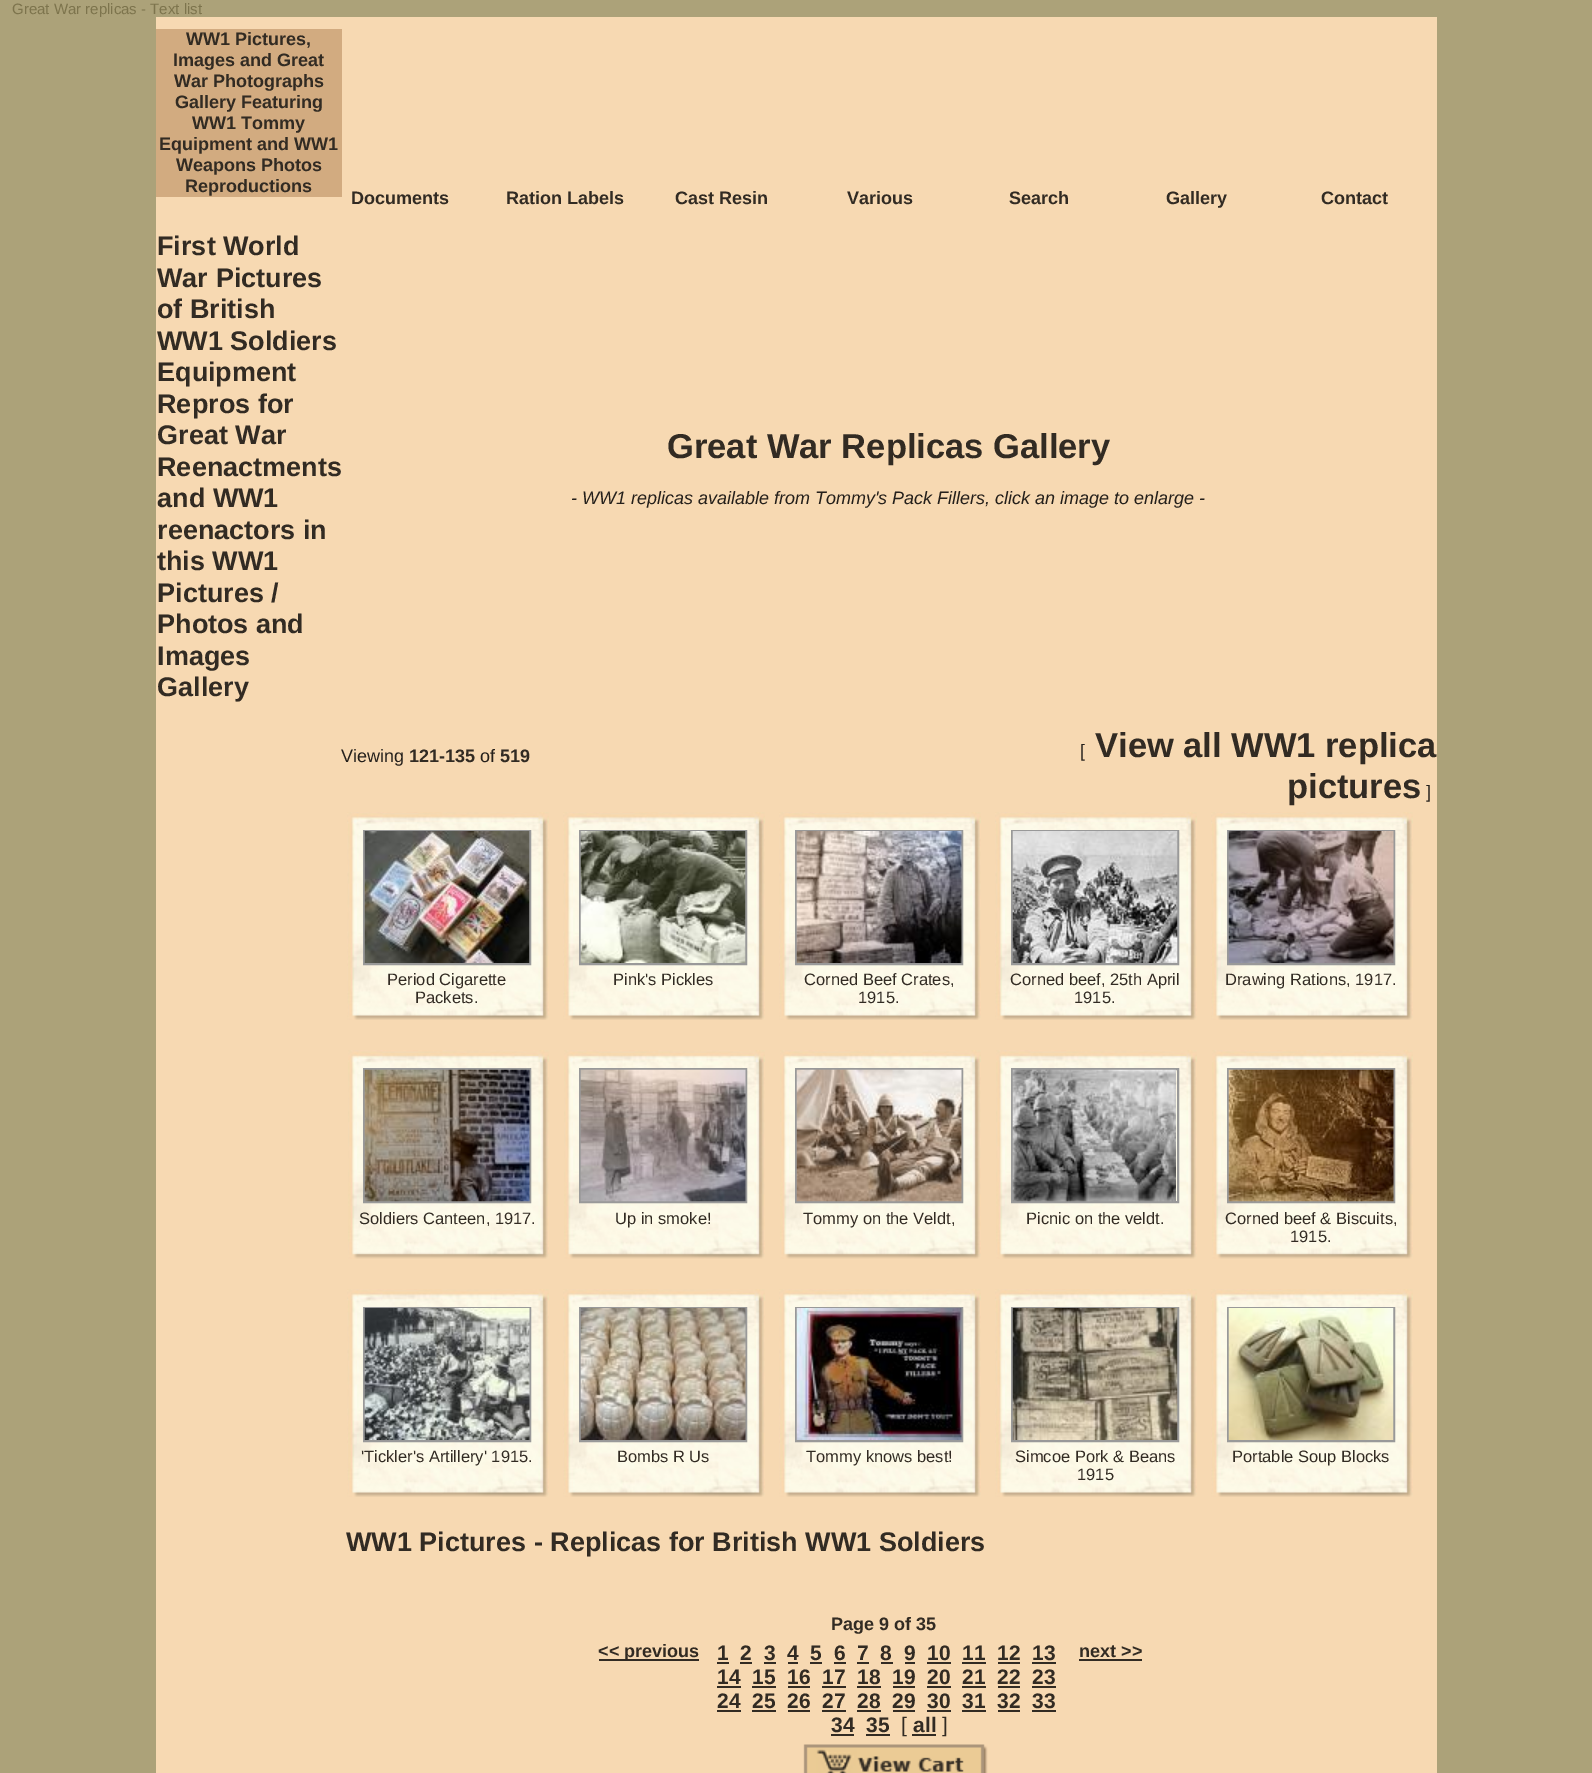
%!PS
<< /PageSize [1592 1773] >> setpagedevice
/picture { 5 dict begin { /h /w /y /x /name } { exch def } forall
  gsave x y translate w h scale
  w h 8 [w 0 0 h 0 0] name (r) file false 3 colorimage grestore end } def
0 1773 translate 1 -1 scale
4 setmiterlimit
0.675 0.635 0.475 setrgbcolor
0 0 1592 1773 rectfill
0.969 0.851 0.698 setrgbcolor
156 17 1281 1756 rectfill
/LiberationSans-Regular [15 0 0 -15 0 0] selectfont
0.49 0.455 0.302 setrgbcolor
12 14 moveto (Great War replicas - Text list) show
0.824 0.671 0.502 setrgbcolor
156 29 186 168 rectfill
/LiberationSans-Bold [18 0 0 -18 0 0] selectfont
0.196 0.169 0.137 setrgbcolor
186 45 moveto (WW1 Pictures,) show
173 66 moveto (Images and Great) show
174 87 moveto (War Photographs) show
175 108 moveto (Gallery Featuring) show
192 129 moveto (WW1 Tommy) show
159 150 moveto (Equipment and WW1) show
176 171 moveto (Weapons Photos) show
185 192 moveto (Reproductions) show
351 204 moveto (Documents) show
506 204 moveto (Ration Labels) show
675 204 moveto (Cast Resin) show
847 204 moveto (Various) show
1009 204 moveto (Search) show
1166 204 moveto (Gallery) show
1321 204 moveto (Contact) show
/LiberationSans-Bold [27 0 0 -27 0 0] selectfont
157 255 moveto (First World) show
157 287 moveto (War Pictures) show
157 318 moveto (of British) show
157 350 moveto (WW1 Soldiers) show
157 381 moveto (Equipment) show
157 413 moveto (Repros for) show
157 444 moveto (Great War) show
157 476 moveto (Reenactments) show
157 507 moveto (and WW1) show
157 539 moveto (reenactors in) show
157 570 moveto (this WW1) show
157 602 moveto (Pictures /) show
157 633 moveto (Photos and) show
157 665 moveto (Images) show
157 696 moveto (Gallery) show
/LiberationSans-Bold [34.5 0 0 -34.5 0 0] selectfont
667 458 moveto (Great War Replicas Gallery) show
/LiberationSans-Italic [18 0 0 -18 0 0] selectfont
0.145 0.125 0.106 setrgbcolor
571 504 moveto (- WW1 replicas available from Tommy's Pack Fillers, click an image to enlarge -) show
/LiberationSans-Regular [18 0 0 -18 0 0] selectfont
341 762 moveto (Viewing) show
/LiberationSans-Bold [18 0 0 -18 0 0] selectfont
0.196 0.169 0.137 setrgbcolor
409 762 moveto (121-135) show
/LiberationSans-Regular [18 0 0 -18 0 0] selectfont
0.145 0.125 0.106 setrgbcolor
480 762 moveto (of) show
/LiberationSans-Bold [18 0 0 -18 0 0] selectfont
0.196 0.169 0.137 setrgbcolor
500 762 moveto (519) show
/LiberationSans-Regular [18 0 0 -18 0 0] selectfont
0.145 0.125 0.106 setrgbcolor
1080 757 moveto ([) show
/LiberationSans-Bold [34.5 0 0 -34.5 0 0] selectfont
0.196 0.169 0.137 setrgbcolor
1095 757 moveto (View all WW1 replica) show
1287 798 moveto (pictures) show
/LiberationSans-Regular [18 0 0 -18 0 0] selectfont
0.145 0.125 0.106 setrgbcolor
1426 798 moveto (]) show
(img1.rgb) 347 812 202 208 picture
0.6 setgray
2 setlinewidth
364 831 166 133 rectstroke
(img2.rgb) 364 831 166 132 picture
/LiberationSans-Regular [16.5 0 0 -16.5 0 0] selectfont
0.196 0.169 0.137 setrgbcolor
387 985 moveto (Period Cigarette) show
415 1003 moveto (Packets.) show
(img3.rgb) 563 812 202 208 picture
0.6 setgray
580 831 166 133 rectstroke
(img4.rgb) 580 831 166 132 picture
0.196 0.169 0.137 setrgbcolor
613 985 moveto (Pink's Pickles) show
(img5.rgb) 779 812 202 208 picture
0.6 setgray
796 831 166 133 rectstroke
(img6.rgb) 796 831 166 132 picture
0.196 0.169 0.137 setrgbcolor
804 985 moveto (Corned Beef Crates,) show
858 1003 moveto (1915.) show
(img5.rgb) 995 812 202 208 picture
0.6 setgray
1012 831 166 133 rectstroke
(img7.rgb) 1012 831 166 132 picture
0.196 0.169 0.137 setrgbcolor
1010 985 moveto (Corned beef, 25th April) show
1074 1003 moveto (1915.) show
(img5.rgb) 1211 812 202 208 picture
0.6 setgray
1228 831 166 133 rectstroke
(img8.rgb) 1228 831 166 132 picture
0.196 0.169 0.137 setrgbcolor
1225 985 moveto (Drawing Rations, 1917.) show
(img9.rgb) 348 1050 201 209 picture
0.6 setgray
364 1069 166 133 rectstroke
(img10.rgb) 364 1069 166 133 picture
0.196 0.169 0.137 setrgbcolor
359 1224 moveto (Soldiers Canteen, 1917.) show
(img11.rgb) 564 1050 201 209 picture
0.6 setgray
580 1069 166 133 rectstroke
(img12.rgb) 580 1069 166 133 picture
0.196 0.169 0.137 setrgbcolor
615 1224 moveto (Up in smoke!) show
(img13.rgb) 780 1050 201 209 picture
0.6 setgray
796 1069 166 133 rectstroke
(img14.rgb) 796 1069 166 133 picture
0.196 0.169 0.137 setrgbcolor
803 1224 moveto (Tommy on the Veldt,) show
(img13.rgb) 996 1050 201 209 picture
0.6 setgray
1012 1069 166 133 rectstroke
(img15.rgb) 1012 1069 164 133 picture
0.196 0.169 0.137 setrgbcolor
1026 1224 moveto (Picnic on the veldt.) show
(img13.rgb) 1212 1050 201 209 picture
0.6 setgray
1228 1069 166 133 rectstroke
(img16.rgb) 1228 1069 166 133 picture
0.196 0.169 0.137 setrgbcolor
1225 1224 moveto (Corned beef & Biscuits,) show
1290 1242 moveto (1915.) show
(img1.rgb) 347 1289 202 208 picture
0.6 setgray
364 1308 166 133 rectstroke
(img17.rgb) 364 1308 166 132 picture
0.196 0.169 0.137 setrgbcolor
361 1462 moveto ('Tickler's Artillery' 1915.) show
(img3.rgb) 563 1289 202 208 picture
0.6 setgray
580 1308 166 133 rectstroke
(img18.rgb) 580 1308 166 132 picture
0.196 0.169 0.137 setrgbcolor
617 1462 moveto (Bombs R Us) show
(img5.rgb) 779 1289 202 208 picture
0.6 setgray
796 1308 166 133 rectstroke
(img19.rgb) 796 1308 166 132 picture
0.196 0.169 0.137 setrgbcolor
806 1462 moveto (Tommy knows best!) show
(img5.rgb) 995 1289 202 208 picture
0.6 setgray
1012 1308 166 133 rectstroke
(img20.rgb) 1012 1308 166 132 picture
0.196 0.169 0.137 setrgbcolor
1015 1462 moveto (Simcoe Pork & Beans) show
1077 1480 moveto (1915) show
(img5.rgb) 1211 1289 202 208 picture
0.6 setgray
1228 1308 166 133 rectstroke
(img21.rgb) 1228 1308 166 132 picture
0.196 0.169 0.137 setrgbcolor
1232 1462 moveto (Portable Soup Blocks) show
/LiberationSans-Bold [27 0 0 -27 0 0] selectfont
346 1551 moveto (WW1 Pictures - Replicas for British WW1 Soldiers) show
/LiberationSans-Bold [18 0 0 -18 0 0] selectfont
831 1630 moveto (Page 9 of 35) show
599 1659 100 2 rectfill
598 1657 moveto (<< previous) show
/LiberationSans-Bold [21 0 0 -21 0 0] selectfont
717 1660 moveto (1) show
717 1662 12 2 rectfill
740 1660 moveto (2) show
740 1662 12 2 rectfill
764 1660 moveto (3) show
764 1662 12 2 rectfill
787 1660 moveto (4) show
788 1662 10 2 rectfill
810 1660 moveto (5) show
810 1662 12 2 rectfill
834 1660 moveto (6) show
834 1662 12 2 rectfill
857 1660 moveto (7) show
857 1662 12 2 rectfill
880 1660 moveto (8) show
881 1662 12 2 rectfill
904 1660 moveto (9) show
905 1662 10 2 rectfill
927 1660 moveto (10) show
927 1662 24 2 rectfill
962 1660 moveto (11) show
962 1662 24 2 rectfill
997 1660 moveto (12) show
998 1662 22 2 rectfill
1032 1660 moveto (13) show
1032 1662 24 2 rectfill
717 1684 moveto (14) show
717 1686 24 2 rectfill
752 1684 moveto (15) show
752 1686 24 2 rectfill
787 1684 moveto (16) show
788 1686 22 2 rectfill
822 1684 moveto (17) show
822 1686 24 2 rectfill
857 1684 moveto (18) show
857 1686 24 2 rectfill
892 1684 moveto (19) show
893 1686 22 2 rectfill
927 1684 moveto (20) show
927 1686 24 2 rectfill
962 1684 moveto (21) show
962 1686 24 2 rectfill
997 1684 moveto (22) show
998 1686 22 2 rectfill
1032 1684 moveto (23) show
1032 1686 24 2 rectfill
717 1708 moveto (24) show
717 1710 24 2 rectfill
752 1708 moveto (25) show
752 1710 24 2 rectfill
787 1708 moveto (26) show
788 1710 22 2 rectfill
822 1708 moveto (27) show
822 1710 24 2 rectfill
857 1708 moveto (28) show
857 1710 24 2 rectfill
892 1708 moveto (29) show
893 1710 22 2 rectfill
927 1708 moveto (30) show
927 1710 24 2 rectfill
962 1708 moveto (31) show
962 1710 24 2 rectfill
997 1708 moveto (32) show
998 1710 22 2 rectfill
1032 1708 moveto (33) show
1032 1710 24 2 rectfill
831 1732 moveto (34) show
831 1734 23 2 rectfill
866 1732 moveto (35) show
866 1734 24 2 rectfill
/LiberationSans-Regular [21 0 0 -21 0 0] selectfont
901 1732 moveto ([) show
/LiberationSans-Bold [21 0 0 -21 0 0] selectfont
913 1732 moveto (all) show
912 1734 24 2 rectfill
/LiberationSans-Regular [21 0 0 -21 0 0] selectfont
942 1732 moveto (]) show
/LiberationSans-Bold [18 0 0 -18 0 0] selectfont
1079 1657 moveto (next >>) show
1079 1659 63 2 rectfill
(img22.rgb) 803 1744 185 29 picture
showpage
